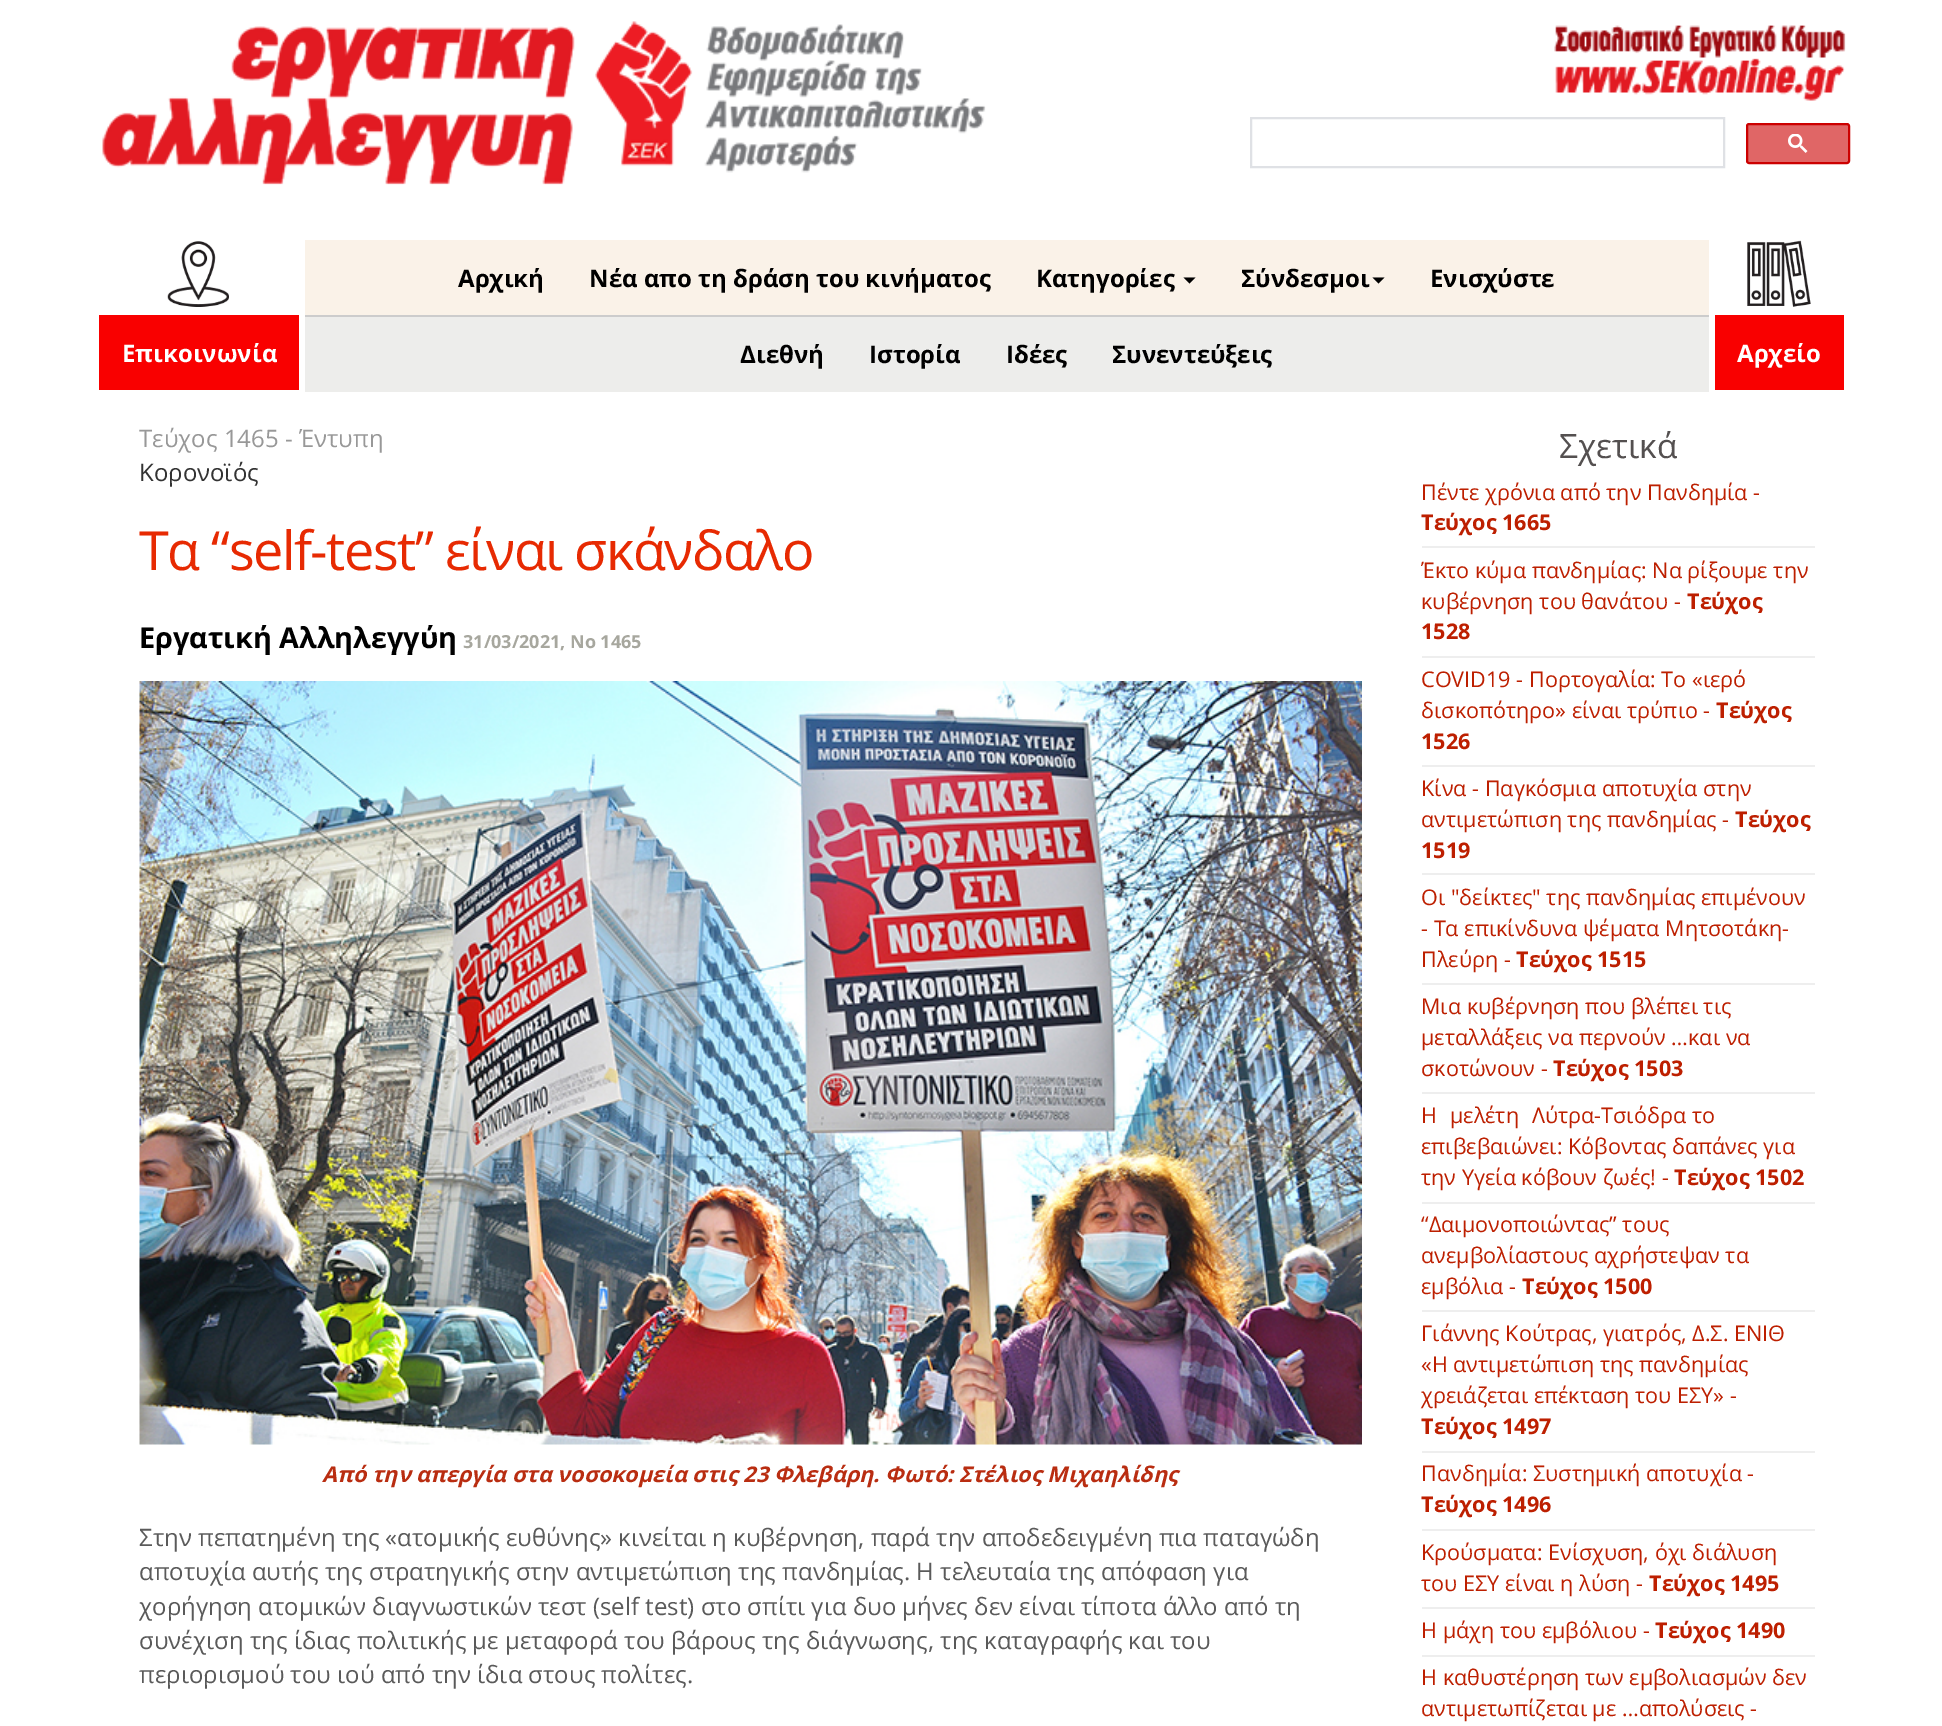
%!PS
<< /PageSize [1942 1726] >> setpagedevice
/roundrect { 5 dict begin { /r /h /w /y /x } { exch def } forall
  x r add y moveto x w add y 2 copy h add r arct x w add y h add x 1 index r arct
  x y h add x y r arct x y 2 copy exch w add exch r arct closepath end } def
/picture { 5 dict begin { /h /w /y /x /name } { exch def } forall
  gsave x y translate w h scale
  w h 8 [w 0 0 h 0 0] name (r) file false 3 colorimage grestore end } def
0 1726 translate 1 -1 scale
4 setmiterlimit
1 setgray
0 0 1942 1726 rectfill
(img1.rgb) 102 21 884 164 picture
(img2.rgb) 1554 25 292 76 picture
0.875 0.882 0.898 setrgbcolor
2 setlinewidth
1251 118 473 49 rectstroke
0.878 0.4 0.4 setrgbcolor
1747 124 102 39 2 roundrect gsave fill grestore
0.8 0 0 setrgbcolor
stroke
(img3.rgb) 1788 134 20 19 picture
(img4.rgb) 167 241 62 66 picture
0.976 0 0 setrgbcolor
99 315 200 75 rectfill
/OpenSans-Bold [24 0 0 -24 0 0] selectfont
1 setgray
122 362 moveto (Επικοινωνία) show
0.98 0.949 0.91 setrgbcolor
305 240 1404 75 rectfill
0 setgray
458 287 moveto (Αρχική) show
589 287 moveto (Νέα απο τη δράση του κινήματος) show
1036 287 moveto (Κατηγορίες) show
newpath 1183.5 277.5 moveto 1195.5 277.5 lineto 1189.5 283.5 lineto closepath fill
1241 287 moveto (Σύνδεσμοι) show
newpath 1372.5 277.5 moveto 1384.5 277.5 lineto 1378.5 283.5 lineto closepath fill
1430 287 moveto (Ενισχύστε) show
0.929 0.929 0.922 setrgbcolor
305 317 1404 75 rectfill
0.8 setgray
305 315 1404 2 rectfill
0 setgray
740 363 moveto (Διεθνή) show
869 363 moveto (Ιστορία) show
1006 363 moveto (Ιδέες) show
1112 363 moveto (Συνεντεύξεις) show
(img5.rgb) 1747 240 64 67 picture
0.976 0 0 setrgbcolor
1715 315 129 75 rectfill
1 setgray
1737 362 moveto (Αρχείο) show
/OpenSans-Regular [24 0 0 -24 0 0] selectfont
0.596 setgray
139 447 moveto (Τεύχος 1465 - Έντυπη) show
0.2 setgray
139 481 moveto (Κορονοϊός) show
/OpenSans-Regular [54 0 0 -54 0 0] selectfont
0.906 0.165 0.008 setrgbcolor
139 570 moveto -1.5 0 (Τα “self-test” είναι σκάνδαλο) ashow
/OpenSans-Bold [28.75 0 0 -28.75 0 0] selectfont
0 setgray
139 648 moveto (Εργατική Αλληλεγγύη) show
/OpenSans-Bold [18 0 0 -18 0 0] selectfont
0.655 0.655 0.62 setrgbcolor
463 648 moveto (31/03/2021, No 1465) show
(img6.rgb) 139 681 1223 764 picture
/OpenSans-BoldItalic [21.6 0 0 -21.6 0 0] selectfont
0.725 0.176 0.067 setrgbcolor
322 1482 moveto (Από την απεργία στα νοσοκομεία στις 23 Φλεβάρη. Φωτό: Στέλιος Μιχαηλίδης) show
/OpenSans-Regular [24 0 0 -24 0 0] selectfont
0.353 setgray
139 1546 moveto (Στην πεπατημένη της «ατομικής ευθύνης» κινείται η κυβέρνηση, παρά την αποδεδειγμένη πια παταγώδη) show
139 1580 moveto (αποτυχία αυτής της στρατηγικής στην αντιμετώπιση της πανδημίας. Η τελευταία της απόφαση για) show
139 1615 moveto (χορήγηση ατομικών διαγνωστικών τεστ \(self test\) στο σπίτι για δυο μήνες δεν είναι τίποτα άλλο από τη) show
139 1649 moveto (συνέχιση της ίδιας πολιτικής με μεταφορά του βάρους της διάγνωσης, της καταγραφής και του) show
139 1683 moveto (περιορισμού του ιού από την ίδια στους πολίτες.) show
/OpenSans-Regular [33.5 0 0 -33.5 0 0] selectfont
0.329 0.314 0.314 setrgbcolor
1559 458 moveto (Σχετικά) show
0.933 setgray
1422 546 393 2 rectfill
/OpenSans-Regular [21.6 0 0 -21.6 0 0] selectfont
0.741 0.122 0 setrgbcolor
1421 500 moveto (Πέντε χρόνια από την Πανδημία -) show
/OpenSans-Bold [21.6 0 0 -21.6 0 0] selectfont
1421 530 moveto (Τεύχος 1665) show
0.933 setgray
1422 656 393 2 rectfill
/OpenSans-Regular [21.6 0 0 -21.6 0 0] selectfont
0.741 0.122 0 setrgbcolor
1421 578 moveto (Έκτο κύμα πανδημίας: Να ρίξουμε την) show
1421 609 moveto (κυβέρνηση του θανάτου -) show
/OpenSans-Bold [21.6 0 0 -21.6 0 0] selectfont
1687 609 moveto (Τεύχος) show
1421 639 moveto (1528) show
0.933 setgray
1422 765 393 2 rectfill
/OpenSans-Regular [21.6 0 0 -21.6 0 0] selectfont
0.741 0.122 0 setrgbcolor
1421 687 moveto (COVID19 - Πορτογαλία: To «ιερό) show
1421 718 moveto (δισκοπότηρο» είναι τρύπιο -) show
/OpenSans-Bold [21.6 0 0 -21.6 0 0] selectfont
1716 718 moveto (Τεύχος) show
1421 749 moveto (1526) show
0.933 setgray
1422 873 393 2 rectfill
/OpenSans-Regular [21.6 0 0 -21.6 0 0] selectfont
0.741 0.122 0 setrgbcolor
1421 796 moveto (Κίνα - Παγκόσμια αποτυχία στην) show
1421 827 moveto (αντιμετώπιση της πανδημίας -) show
/OpenSans-Bold [21.6 0 0 -21.6 0 0] selectfont
1735 827 moveto (Τεύχος) show
1421 858 moveto (1519) show
0.933 setgray
1422 983 393 2 rectfill
/OpenSans-Regular [21.6 0 0 -21.6 0 0] selectfont
0.741 0.122 0 setrgbcolor
1421 905 moveto (Οι "δείκτες" της πανδημίας επιμένουν) show
1421 936 moveto (- Τα επικίνδυνα ψέματα Μητσοτάκη-) show
1421 967 moveto (Πλεύρη -) show
/OpenSans-Bold [21.6 0 0 -21.6 0 0] selectfont
1516 967 moveto (Τεύχος 1515) show
0.933 setgray
1422 1092 393 2 rectfill
/OpenSans-Regular [21.6 0 0 -21.6 0 0] selectfont
0.741 0.122 0 setrgbcolor
1421 1014 moveto (Μια κυβέρνηση που βλέπει τις) show
1421 1045 moveto (μεταλλάξεις να περνούν …και να) show
1421 1076 moveto (σκοτώνουν -) show
/OpenSans-Bold [21.6 0 0 -21.6 0 0] selectfont
1553 1076 moveto (Τεύχος 1503) show
0.933 setgray
1422 1202 393 2 rectfill
/OpenSans-Regular [21.6 0 0 -21.6 0 0] selectfont
0.741 0.122 0 setrgbcolor
1421 1123 moveto (Η μελέτη Λύτρα-Τσιόδρα το) show
1421 1154 moveto (επιβεβαιώνει: Κόβοντας δαπάνες για) show
1421 1185 moveto (την Υγεία κόβουν ζωές! -) show
/OpenSans-Bold [21.6 0 0 -21.6 0 0] selectfont
1674 1185 moveto (Τεύχος 1502) show
0.933 setgray
1422 1310 393 2 rectfill
/OpenSans-Regular [21.6 0 0 -21.6 0 0] selectfont
0.741 0.122 0 setrgbcolor
1421 1232 moveto (“Δαιμονοποιώντας” τους) show
1421 1263 moveto (ανεμβολίαστους αχρήστεψαν τα) show
1421 1294 moveto (εμβόλια -) show
/OpenSans-Bold [21.6 0 0 -21.6 0 0] selectfont
1522 1294 moveto (Τεύχος 1500) show
0.933 setgray
1422 1451 393 2 rectfill
/OpenSans-Regular [21.6 0 0 -21.6 0 0] selectfont
0.741 0.122 0 setrgbcolor
1421 1341 moveto (Γιάννης Κούτρας, γιατρός, Δ.Σ. ΕΝΙΘ) show
1421 1372 moveto («Η αντιμετώπιση της πανδημίας) show
1421 1403 moveto (χρειάζεται επέκταση του ΕΣΥ» -) show
/OpenSans-Bold [21.6 0 0 -21.6 0 0] selectfont
1421 1434 moveto (Τεύχος 1497) show
0.933 setgray
1422 1529 393 2 rectfill
/OpenSans-Regular [21.6 0 0 -21.6 0 0] selectfont
0.741 0.122 0 setrgbcolor
1421 1481 moveto (Πανδημία: Συστημική αποτυχία -) show
/OpenSans-Bold [21.6 0 0 -21.6 0 0] selectfont
1421 1512 moveto (Τεύχος 1496) show
0.933 setgray
1422 1607 393 2 rectfill
/OpenSans-Regular [21.6 0 0 -21.6 0 0] selectfont
0.741 0.122 0 setrgbcolor
1421 1560 moveto (Κρούσματα: Ενίσχυση, όχι διάλυση) show
1421 1591 moveto (του ΕΣΥ είναι η λύση -) show
/OpenSans-Bold [21.6 0 0 -21.6 0 0] selectfont
1649 1591 moveto (Τεύχος 1495) show
0.933 setgray
1422 1655 393 2 rectfill
/OpenSans-Regular [21.6 0 0 -21.6 0 0] selectfont
0.741 0.122 0 setrgbcolor
1421 1638 moveto (Η μάχη του εμβόλιου -) show
/OpenSans-Bold [21.6 0 0 -21.6 0 0] selectfont
1655 1638 moveto (Τεύχος 1490) show
/OpenSans-Regular [21.6 0 0 -21.6 0 0] selectfont
1421 1685 moveto (Η καθυστέρηση των εμβολιασμών δεν) show
1421 1716 moveto (αντιμετωπίζεται με …απολύσεις -) show
showpage
